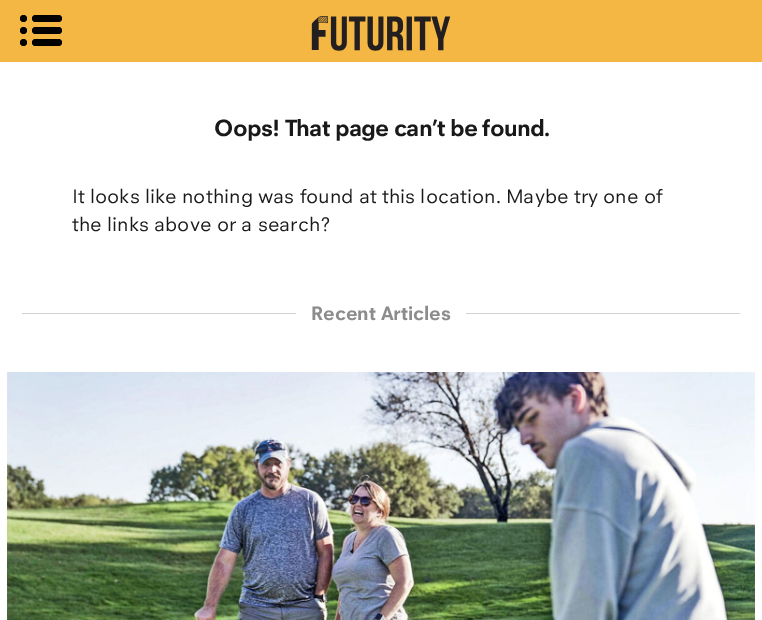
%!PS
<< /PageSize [762 620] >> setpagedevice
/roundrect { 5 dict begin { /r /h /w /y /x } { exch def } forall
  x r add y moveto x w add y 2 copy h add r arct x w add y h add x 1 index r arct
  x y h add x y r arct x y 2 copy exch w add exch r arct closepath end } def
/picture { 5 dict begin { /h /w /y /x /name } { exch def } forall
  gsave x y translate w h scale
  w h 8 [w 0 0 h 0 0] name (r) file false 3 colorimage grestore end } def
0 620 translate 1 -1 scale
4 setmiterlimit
1 setgray
0 0 762 620 rectfill
0.957 0.718 0.263 setrgbcolor
0 0 762 62 rectfill
(img1.rgb) 311 16 140 35 picture
0 setgray
newpath 23.5 18.5 3.5 0 360 arc closepath fill
32 15 30 7 3.5 roundrect fill
newpath 23.5 30.5 3.5 0 360 arc closepath fill
32 27 30 7 3.5 roundrect fill
newpath 23.5 42.5 3.5 0 360 arc closepath fill
32 39 30 7 3.5 roundrect fill
/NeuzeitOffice-Bold [24 0 0 -24 0 0] selectfont
0.102 0.098 0.098 setrgbcolor
214 136 moveto -0.75 0 (Oops! That page can’t be found.) ashow
/NeuzeitOffice-Regular [20 0 0 -20 0 0] selectfont
72 203 moveto (It looks like nothing was found at this location. Maybe try one of) show
72 231 moveto (the links above or a search?) show
0.824 0.82 0.82 setrgbcolor
22 313 718 1 rectfill
1 setgray
296 313 170 1 rectfill
/NeuzeitOffice-Bold [20 0 0 -20 0 0] selectfont
0.549 setgray
311 320 moveto (Recent Articles) show
(img2.rgb) 7 372 748 248 picture
showpage
